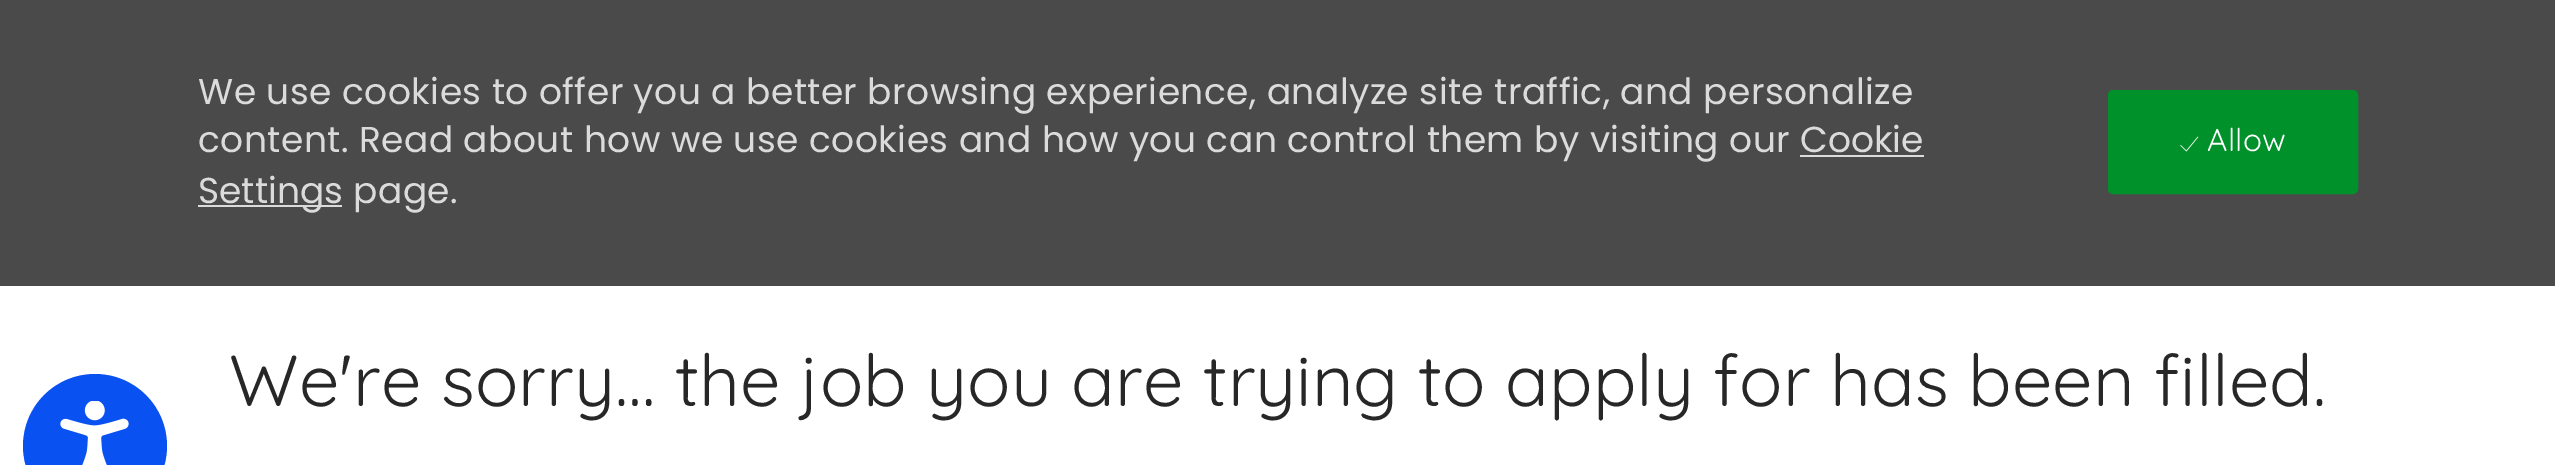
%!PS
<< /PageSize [2555 465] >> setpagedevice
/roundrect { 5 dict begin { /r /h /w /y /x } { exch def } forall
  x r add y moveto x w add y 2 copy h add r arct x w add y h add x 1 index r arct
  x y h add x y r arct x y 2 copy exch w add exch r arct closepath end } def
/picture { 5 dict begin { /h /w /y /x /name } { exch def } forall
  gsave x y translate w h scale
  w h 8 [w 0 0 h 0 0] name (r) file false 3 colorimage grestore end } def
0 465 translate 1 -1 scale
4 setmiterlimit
1 setgray
0 0 2555 465 rectfill
0.29 setgray
0 0 2555 286 rectfill
/Poppins-Regular [36 0 0 -36 0 0] selectfont
0.859 setgray
198 104 moveto 0.45 0 (We use cookies to offer you a better browsing experience, analyze site traffic, and personalize) ashow
198 152 moveto 0.45 0 (content. Read about how we use cookies and how you can control them by visiting our) ashow
1800 152 moveto (Cookie) show
1800 155 124 2 rectfill
198 205 144 2 rectfill
198 203 moveto (Settings) show
353 203 moveto 0.45 0 (page.) ashow
0 0.569 0.165 setrgbcolor
2109 91 248 102 4 roundrect gsave fill grestore
2 setlinewidth
stroke
(img1.rgb) 2180 136 19 16 picture
/Quicksand-Regular [31.5 0 0 -31.5 0 0] selectfont
1 setgray
2207 151 moveto 0.25 0 (Allow) ashow
0.039 0.318 0.949 setrgbcolor
newpath 95 446 72 0 360 arc closepath fill
(img2.rgb) 60 401 69 64 picture
/Quicksand-Regular [72 0 0 -72 0 0] selectfont
0.153 setgray
229 406 moveto (We're sorry… the job you are trying to apply for has been filled.) show
showpage
